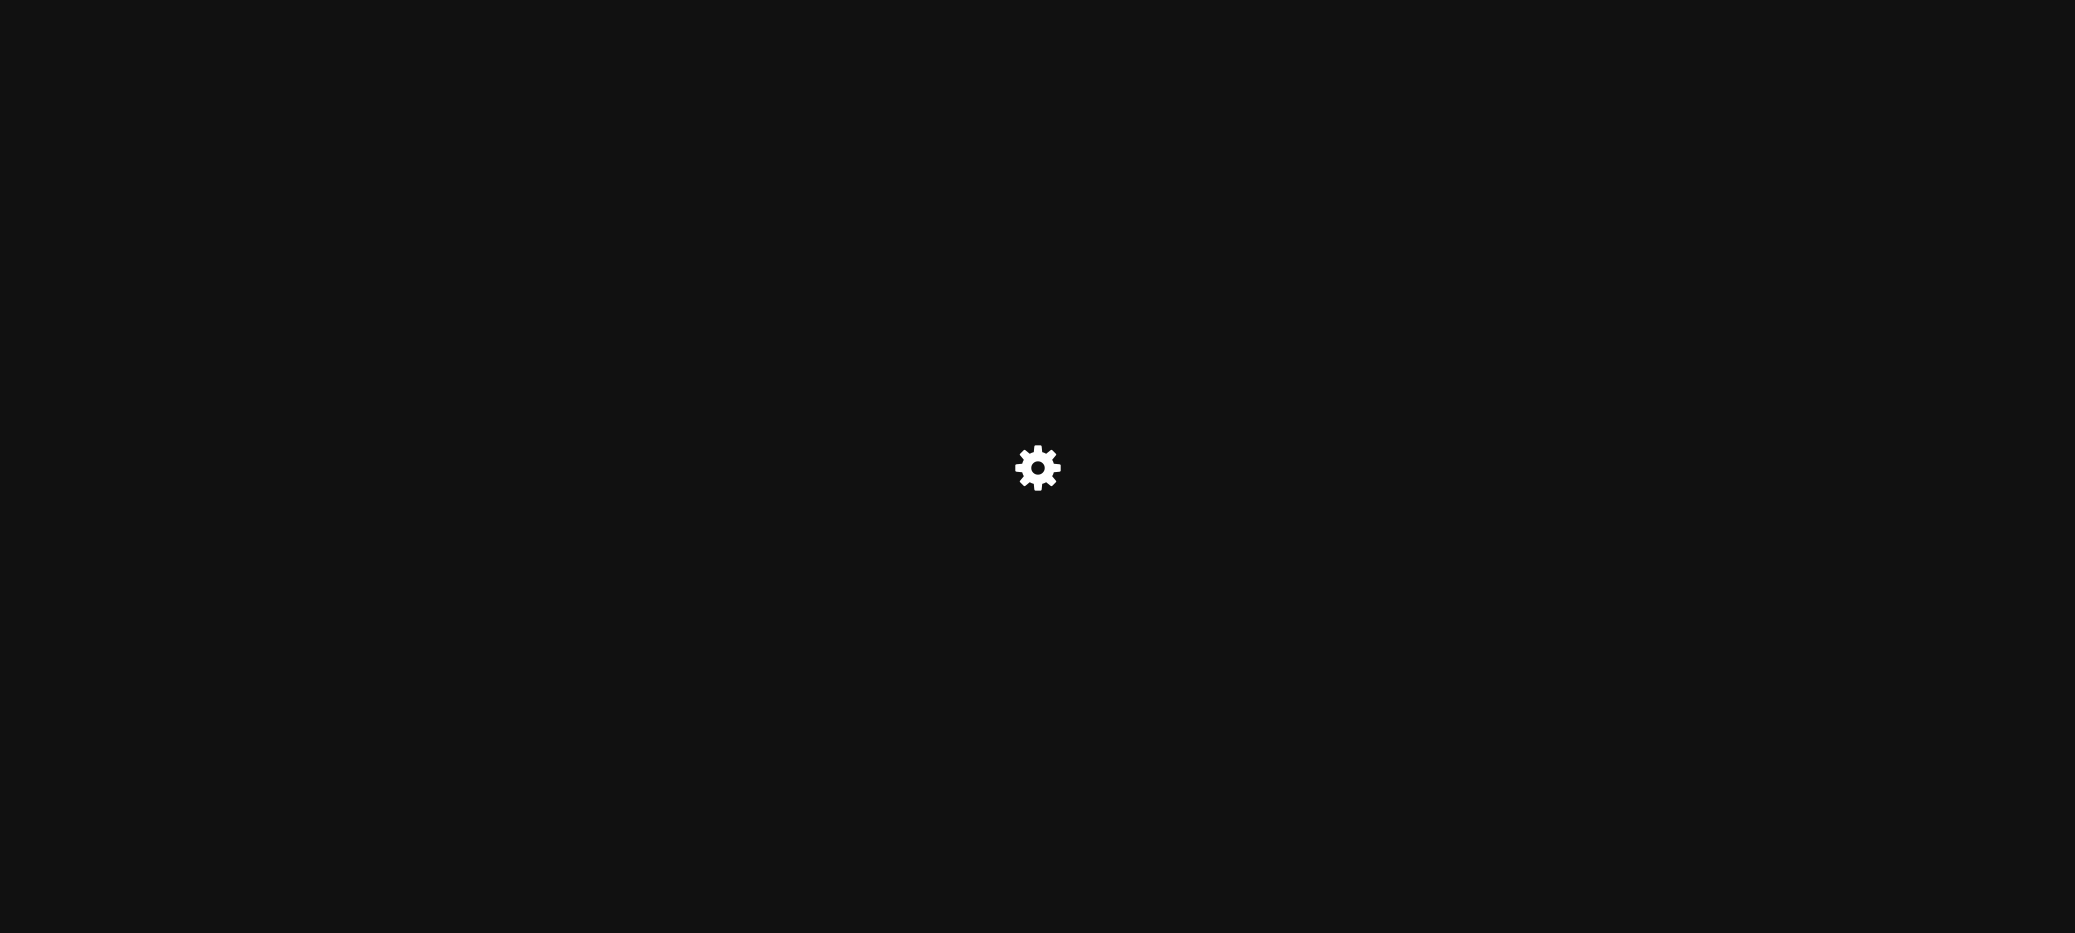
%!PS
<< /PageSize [2075 933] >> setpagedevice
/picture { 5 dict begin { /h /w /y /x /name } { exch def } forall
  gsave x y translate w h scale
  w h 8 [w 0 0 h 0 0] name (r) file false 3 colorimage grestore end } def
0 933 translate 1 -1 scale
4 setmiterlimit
0.067 setgray
0 0 2075 933 rectfill
(img1.rgb) 1015 445 46 46 picture
showpage
